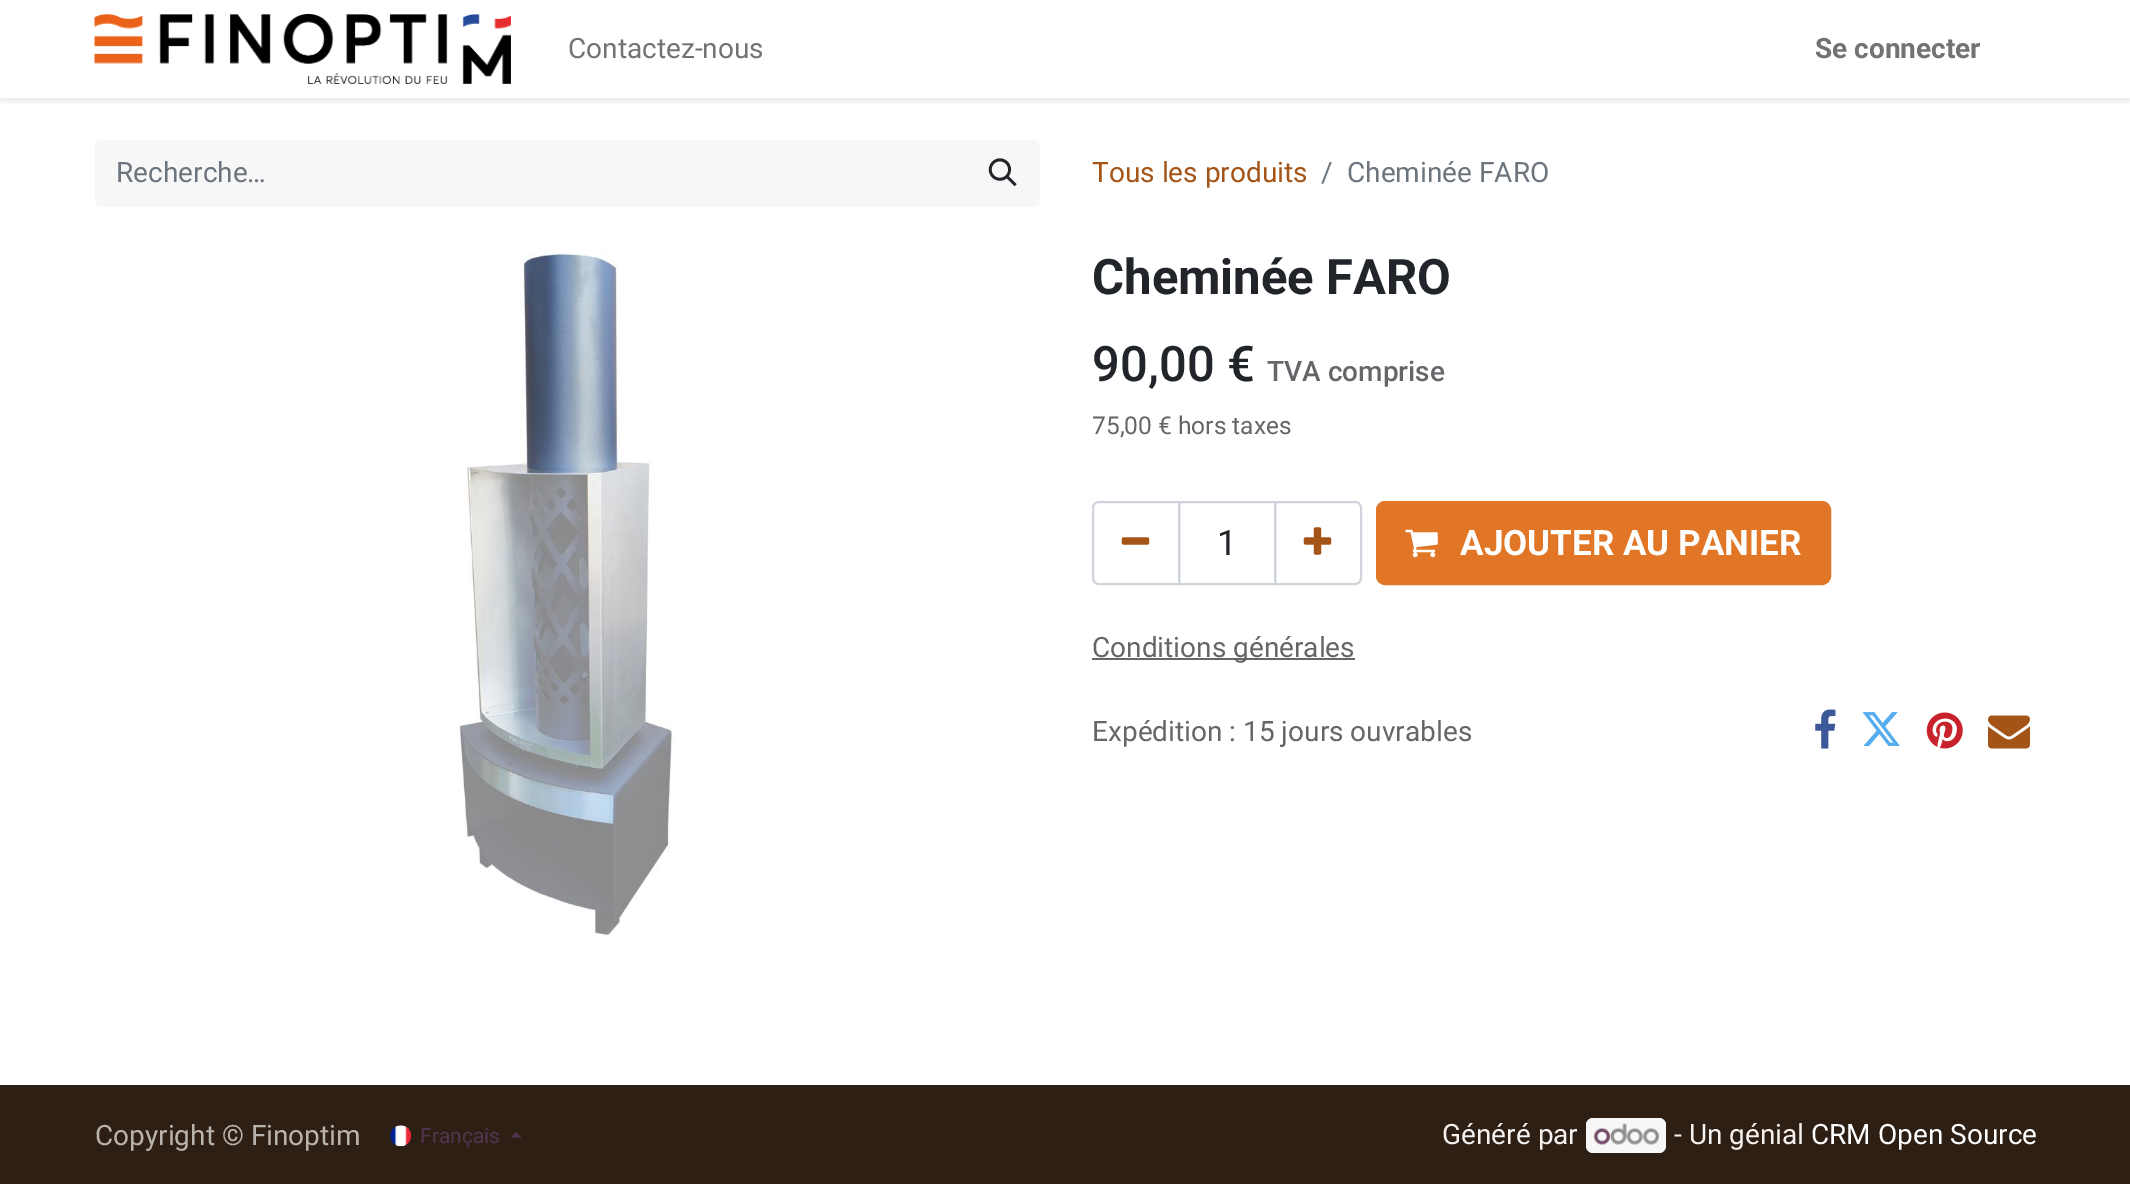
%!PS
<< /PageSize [2130 1184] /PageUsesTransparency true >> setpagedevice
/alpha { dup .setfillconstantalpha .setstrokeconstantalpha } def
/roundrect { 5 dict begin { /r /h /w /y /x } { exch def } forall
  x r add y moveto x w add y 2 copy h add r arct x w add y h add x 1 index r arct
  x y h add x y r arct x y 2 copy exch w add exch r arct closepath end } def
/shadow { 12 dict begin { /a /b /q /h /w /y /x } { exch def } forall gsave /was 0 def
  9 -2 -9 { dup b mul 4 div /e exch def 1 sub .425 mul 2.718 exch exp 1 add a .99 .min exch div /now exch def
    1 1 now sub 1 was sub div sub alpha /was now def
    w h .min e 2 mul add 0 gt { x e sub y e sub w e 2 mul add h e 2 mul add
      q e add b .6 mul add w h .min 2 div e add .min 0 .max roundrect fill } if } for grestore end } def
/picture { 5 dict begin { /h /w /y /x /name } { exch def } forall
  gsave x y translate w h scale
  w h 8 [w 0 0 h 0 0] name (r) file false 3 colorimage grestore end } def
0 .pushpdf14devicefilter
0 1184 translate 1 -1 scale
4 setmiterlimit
1 setgray
0 0 2130 1184 rectfill
gsave
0 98 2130 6 rectclip
0 setgray
0 4 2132 98 0 3.5 0.07 shadow
grestore
(img1.rgb) 94 14 417 70 picture
/Roboto-Regular [28 0 0 -28 0 0] selectfont
0.451 setgray
568 58 moveto (Contactez-nous) show
/Roboto-Bold [28 0 0 -28 0 0] selectfont
1815 58 moveto (Se connecter) show
0.969 setgray
newpath 102 140 moveto 968 140 lineto 968 207 lineto 102 207 lineto 98 207 95 204 95 200 curveto 95 147 lineto 95 143 98 140 102 140 curveto closepath fill
/Roboto-Regular [28 0 0 -28 0 0] selectfont
0.424 0.459 0.49 setrgbcolor
116 182 moveto (Recherche…) show
0.969 setgray
newpath 966 140 moveto 1033 140 lineto 1037 140 1040 143 1040 147 curveto 1040 200 lineto 1040 204 1037 207 1033 207 curveto 966 207 lineto closepath fill
(img2.rgb) 988 158 29 29 picture
0.643 0.329 0.09 setrgbcolor
1092 182 moveto (Tous les produits) show
0.424 0.459 0.49 setrgbcolor
1321 182 moveto (/) show
1347 182 moveto (Cheminée FARO) show
(img3.rgb) 458 251 217 686 picture
/Roboto-Bold [49 0 0 -49 0 0] selectfont
0.129 0.145 0.161 setrgbcolor
1092 294 moveto (Cheminée FARO) show
/Roboto-Medium [49 0 0 -49 0 0] selectfont
1092 381 moveto (90,00 €) show
/Roboto-Medium [28 0 0 -28 0 0] selectfont
0.392 0.4 0.412 setrgbcolor
1267 381 moveto (TVA comprise) show
/Roboto-Regular [24.5 0 0 -24.5 0 0] selectfont
1092 434 moveto (75,00 € hors taxes) show
0.808 0.831 0.855 setrgbcolor
2 setlinewidth
1179 502 96 82 rectstroke
newpath 1099 502 moveto 1179 502 lineto 1179 584 lineto 1099 584 lineto 1095.5 584 1093 581.5 1093 578 curveto 1093 508 lineto 1093 504.5 1095.5 502 1099 502 curveto closepath stroke
(img4.rgb) 1121 537 29 8 picture
/Roboto-Regular [35 0 0 -35 0 0] selectfont
0.129 0.145 0.161 setrgbcolor
1217 555 moveto (1) show
0.808 0.831 0.855 setrgbcolor
newpath 1275 502 moveto 1355 502 lineto 1358.5 502 1361 504.5 1361 508 curveto 1361 578 lineto 1361 581.5 1358.5 584 1355 584 curveto 1275 584 lineto closepath stroke
(img5.rgb) 1303 527 29 28 picture
0.882 0.467 0.149 setrgbcolor
1377 502 453 82 8 roundrect gsave fill grestore
stroke
(img6.rgb) 1405 529 33 29 picture
/Roboto-Bold [35 0 0 -35 0 0] selectfont
1 setgray
1460 555 moveto (AJOUTER AU PANIER) show
0.392 0.4 0.412 setrgbcolor
1092 658 263 2 rectfill
/Roboto-Regular [28 0 0 -28 0 0] selectfont
1092 657 moveto (Conditions générales) show
1092 741 moveto (Expédition : 15 jours ouvrables) show
(img7.rgb) 1815 709 21 40 picture
(img8.rgb) 1862 712 38 34 picture
(img9.rgb) 1926 712 37 37 picture
(img10.rgb) 1988 715 42 34 picture
0.18 0.122 0.078 setrgbcolor
0 1085 2130 99 rectfill
0.725 0.702 0.682 setrgbcolor
95 1145 moveto (Copyright © Finoptim) show
(img11.rgb) 390 1125 22 22 picture
/Roboto-Regular [21 0 0 -21 0 0] selectfont
0.318 0.204 0.302 setrgbcolor
420 1143 moveto (Français) show
newpath 521.5 1137.5 moveto 511 1137.5 lineto 516 1132 lineto closepath fill
/Roboto-Regular [28 0 0 -28 0 0] selectfont
0.961 0.949 0.941 setrgbcolor
1442 1144 moveto (Généré par) show
0.969 setgray
1586 1118 80 35 7 roundrect fill
(img12.rgb) 1594 1123 65 22 picture
0.961 0.949 0.941 setrgbcolor
1674 1144 moveto (- Un génial) show
1 setgray
1811 1144 moveto (CRM Open Source) show
.poppdf14devicefilter showpage
